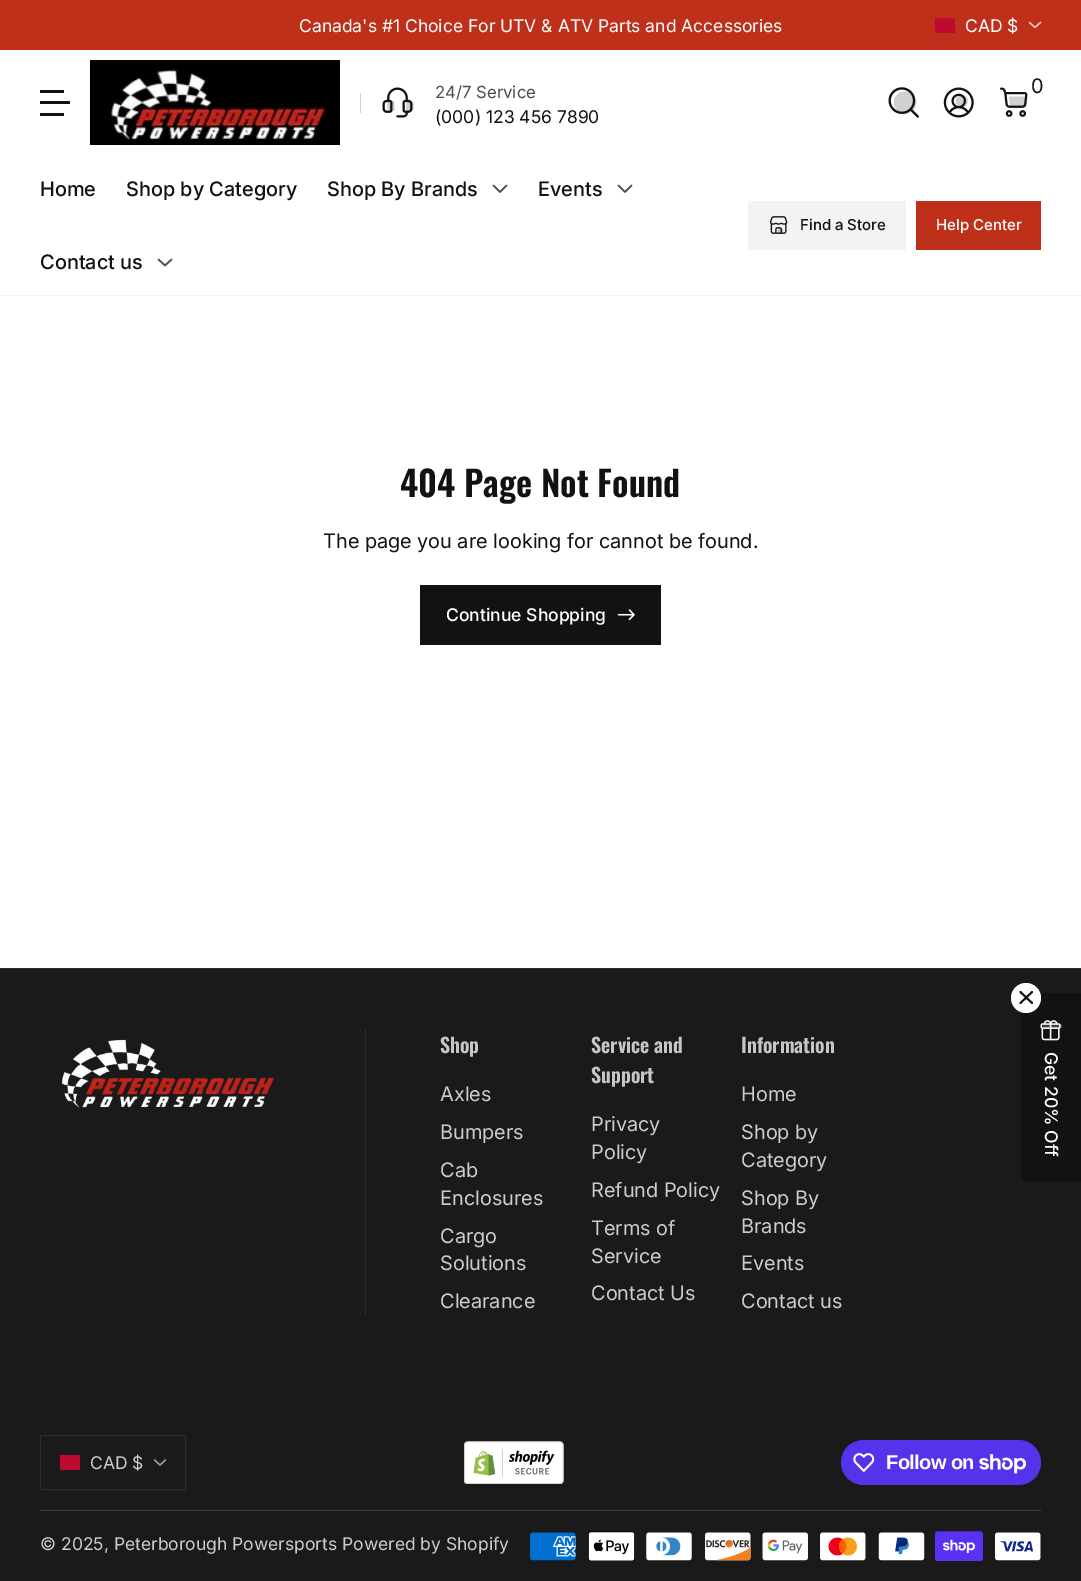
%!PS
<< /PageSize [1081 1581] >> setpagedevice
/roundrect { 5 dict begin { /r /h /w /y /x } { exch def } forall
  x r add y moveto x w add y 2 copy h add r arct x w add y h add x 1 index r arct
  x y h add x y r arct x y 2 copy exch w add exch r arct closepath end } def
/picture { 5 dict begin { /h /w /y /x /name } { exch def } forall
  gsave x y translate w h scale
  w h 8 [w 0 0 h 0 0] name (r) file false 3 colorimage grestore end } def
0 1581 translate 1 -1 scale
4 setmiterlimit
1 setgray
0 0 1081 1581 rectfill
0.745 0.188 0.102 setrgbcolor
0 0 1081 50 rectfill
/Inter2-Regular [17.5 0 0 -17.5 0 0] selectfont
1 setgray
299 32 moveto (Canada's #1 Choice For UTV & ATV Parts and Accessories) show
0.749 0.039 0.188 setrgbcolor
935 18 20 15 rectfill
1 setgray
965 32 moveto (CAD $) show
0.937 0.796 0.776 setrgbcolor
1.3 setlinewidth
1 setlinecap
1 setlinejoin
newpath 1040.5 22.5 moveto 1035 27.5 lineto 1029.5 22.5 lineto stroke
0.071 setgray
40 90 24 3 rectfill
40 101 30 3 rectfill
40 113 24 3 rectfill
(img1.rgb) 90 60 250 85 picture
0.816 setgray
360 93 1 20 rectfill
(img2.rgb) 382 87 32 31 picture
/Inter2-Regular [16.75 0 0 -16.75 0 0] selectfont
0.302 setgray
435 98 moveto (24/7 Service) show
/Inter2-Regular [17.5 0 0 -17.5 0 0] selectfont
0.071 setgray
435 123 moveto (\(000\) 123 456 7890) show
(img3.rgb) 888 87 31 31 picture
(img4.rgb) 943 87 31 31 picture
(img5.rgb) 1000 87 28 30 picture
/Inter-Regular [20 0 0 -20 0 0] selectfont
1031 93 moveto (0) show
/Inter2-Medium [20 0 0 -20 0 0] selectfont
40 196 moveto (Home) show
126 196 moveto (Shop by Category) show
327 196 moveto (Shop By Brands) show
0.302 setgray
1.6 setlinewidth
newpath 506.5 185.5 moveto 500 192 lineto 493.5 185.5 lineto stroke
0.071 setgray
538 196 moveto (Events) show
0.302 setgray
newpath 631.5 185.5 moveto 625 192 lineto 618.5 185.5 lineto stroke
0.071 setgray
40 269 moveto (Contact us) show
0.302 setgray
newpath 171.5 259.5 moveto 165 265.5 lineto 158.5 259.5 lineto stroke
0.953 setgray
748 201 158 49 rectfill
(img6.rgb) 769 216 19 18 picture
/Inter-Medium [15 0 0 -15 0 0] selectfont
0.071 setgray
800 230 moveto (Find a Store) show
0.745 0.188 0.102 setrgbcolor
916 201 125 49 rectfill
1 setgray
936 230 moveto (Help Center) show
0.953 setgray
0 295 1081 1 rectfill
/Oswald-SemiBold [35 0 0 -35 0 0] selectfont
0.071 setgray
400 497 moveto (404 Page Not Found) show
/Inter-Regular [20 0 0 -20 0 0] selectfont
323 548 moveto (The page you are looking for cannot be found.) show
420 585 241 60 rectfill
/Inter-Medium [17.5 0 0 -17.5 0 0] selectfont
1 setgray
446 621 moveto (Continue Shopping) show
(img7.rgb) 617 609 18 12 picture
0.102 setgray
0 969 1081 612 rectfill
0.173 setgray
0 968 1081 1 rectfill
(img8.rgb) 61 1039 213 69 picture
365 1029 1 286 rectfill
/Oswald-SemiBold [20 0 0 -20 0 0] selectfont
0.776 setgray
440 1053 moveto (Shop) show
/Inter-Regular [20 0 0 -20 0 0] selectfont
0.8 setgray
440 1101 moveto (Axles) show
440 1139 moveto (Bumpers) show
440 1177 moveto (Cab) show
440 1205 moveto (Enclosures) show
440 1243 moveto (Cargo) show
440 1270 moveto (Solutions) show
440 1308 moveto (Clearance) show
/Oswald-SemiBold [20 0 0 -20 0 0] selectfont
0.776 setgray
591 1053 moveto (Service and) show
591 1083 moveto (Support) show
/Inter-Regular [20 0 0 -20 0 0] selectfont
0.8 setgray
591 1131 moveto (Privacy) show
591 1159 moveto (Policy) show
591 1197 moveto (Refund Policy) show
591 1235 moveto (Terms of) show
591 1263 moveto (Service) show
591 1300 moveto (Contact Us) show
/Oswald-SemiBold [20 0 0 -20 0 0] selectfont
0.776 setgray
741 1053 moveto (Information) show
/Inter-Regular [20 0 0 -20 0 0] selectfont
0.8 setgray
741 1101 moveto (Home) show
741 1139 moveto (Shop by) show
741 1167 moveto (Category) show
741 1205 moveto (Shop By) show
741 1233 moveto (Brands) show
741 1270 moveto (Events) show
741 1308 moveto (Contact us) show
0.749 0.039 0.188 setrgbcolor
60 1455 20 15 rectfill
0.627 setgray
1.3 setlinewidth
newpath 165.5 1460 moveto 160 1465 lineto 154.5 1460 lineto stroke
0.173 setgray
1 setlinewidth
0 setlinecap
0 setlinejoin
40.5 1435.5 145 54 rectstroke
/Inter2-Regular [17.5 0 0 -17.5 0 0] selectfont
0.8 setgray
90 1469 moveto (CAD $) show
(img9.rgb) 464 1441 100 43 picture
0.329 0.2 0.922 setrgbcolor
841 1440 200 45 22.5 roundrect fill
(img10.rgb) 853 1453 22 19 picture
/LiberationSans-Bold [20 0 0 -20 0 0] selectfont
1 setgray
886 1469 moveto -0.6 0 (Follow on) ashow
(img11.rgb) 979 1454 47 20 picture
0.243 setgray
40 1510 1001 1 rectfill
/Inter2-Regular [17.5 0 0 -17.5 0 0] selectfont
0.8 setgray
40 1550 moveto (© 2025, Peterborough Powersports Powered by Shopify) show
(img12.rgb) 530 1532 46 29 picture
(img13.rgb) 588 1531 47 30 picture
(img14.rgb) 646 1532 46 29 picture
(img15.rgb) 705 1532 46 29 picture
(img16.rgb) 762 1532 46 29 picture
(img17.rgb) 820 1532 46 29 picture
(img18.rgb) 878 1532 47 29 picture
(img19.rgb) 935 1531 48 30 picture
(img20.rgb) 995 1532 46 29 picture
0.071 setgray
1021 993 60 188 rectfill
1 setgray
newpath 1026 998 15 0 360 arc closepath fill
0.071 setgray
1.9 setlinewidth
1 setlinecap
1 setlinejoin
newpath 1020.5 1003 moveto 1032 992 lineto 1020.5 992 moveto 1032 1003 lineto stroke
(img21.rgb) 1040 1020 22 21 picture
/Inter-Medium [17.5 0 0 -17.5 0 0] selectfont
1 setgray
gsave 1045 1052 translate 90 rotate 0 0 moveto (Get 20% Off) show grestore
showpage
